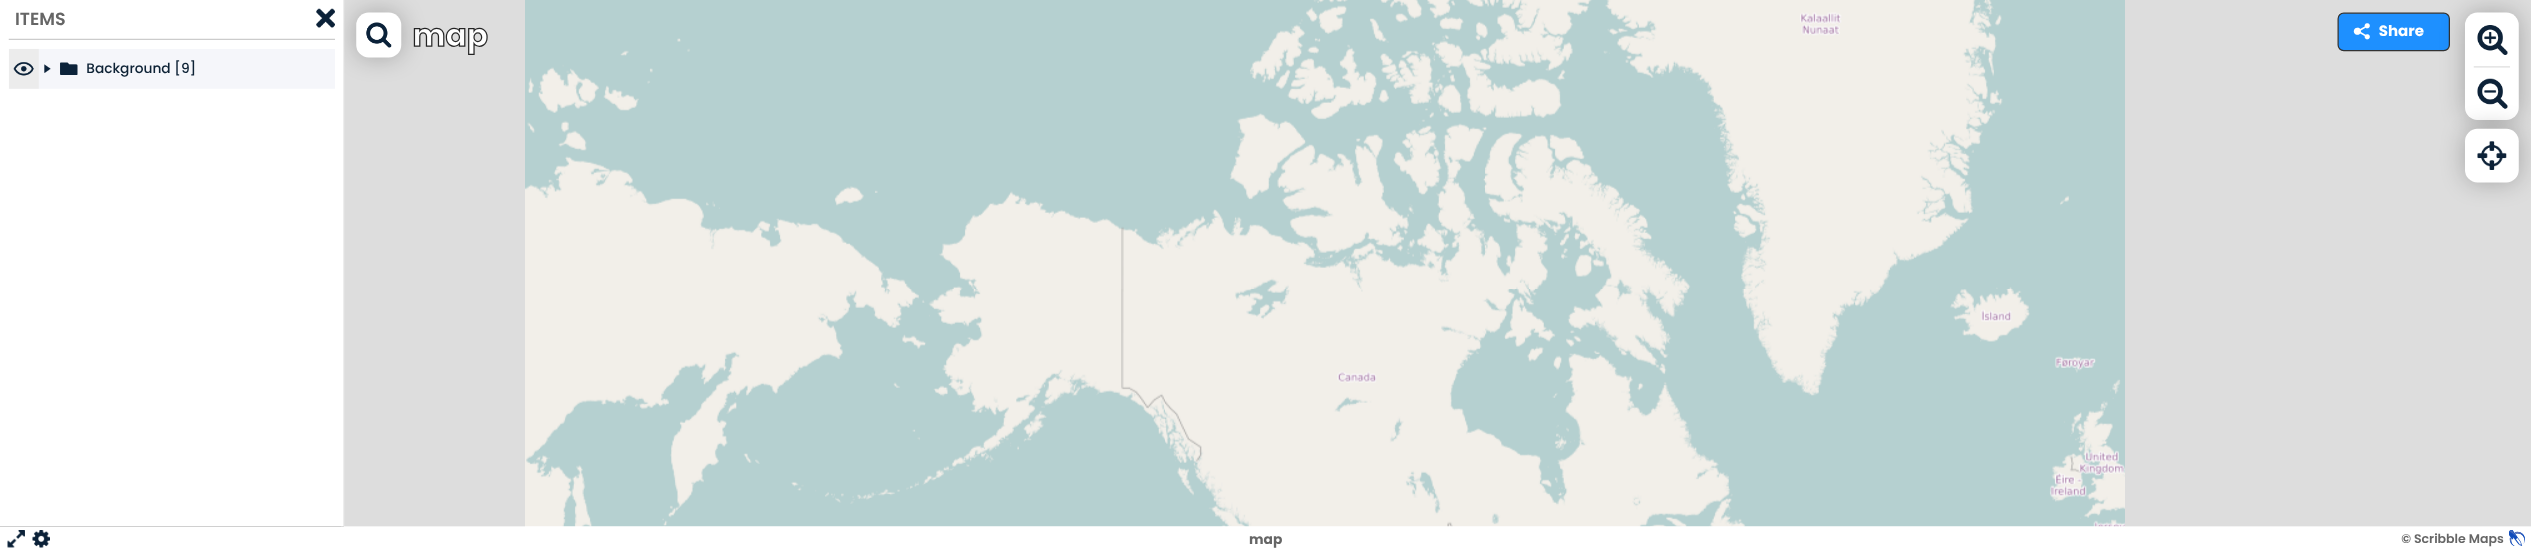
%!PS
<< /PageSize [2531 551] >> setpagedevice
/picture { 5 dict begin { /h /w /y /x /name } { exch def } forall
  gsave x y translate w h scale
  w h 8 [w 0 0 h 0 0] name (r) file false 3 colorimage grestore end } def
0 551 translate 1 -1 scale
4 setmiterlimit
1 setgray
0 0 2531 551 rectfill
(img1.rgb) 0 0 2531 548 picture
showpage
